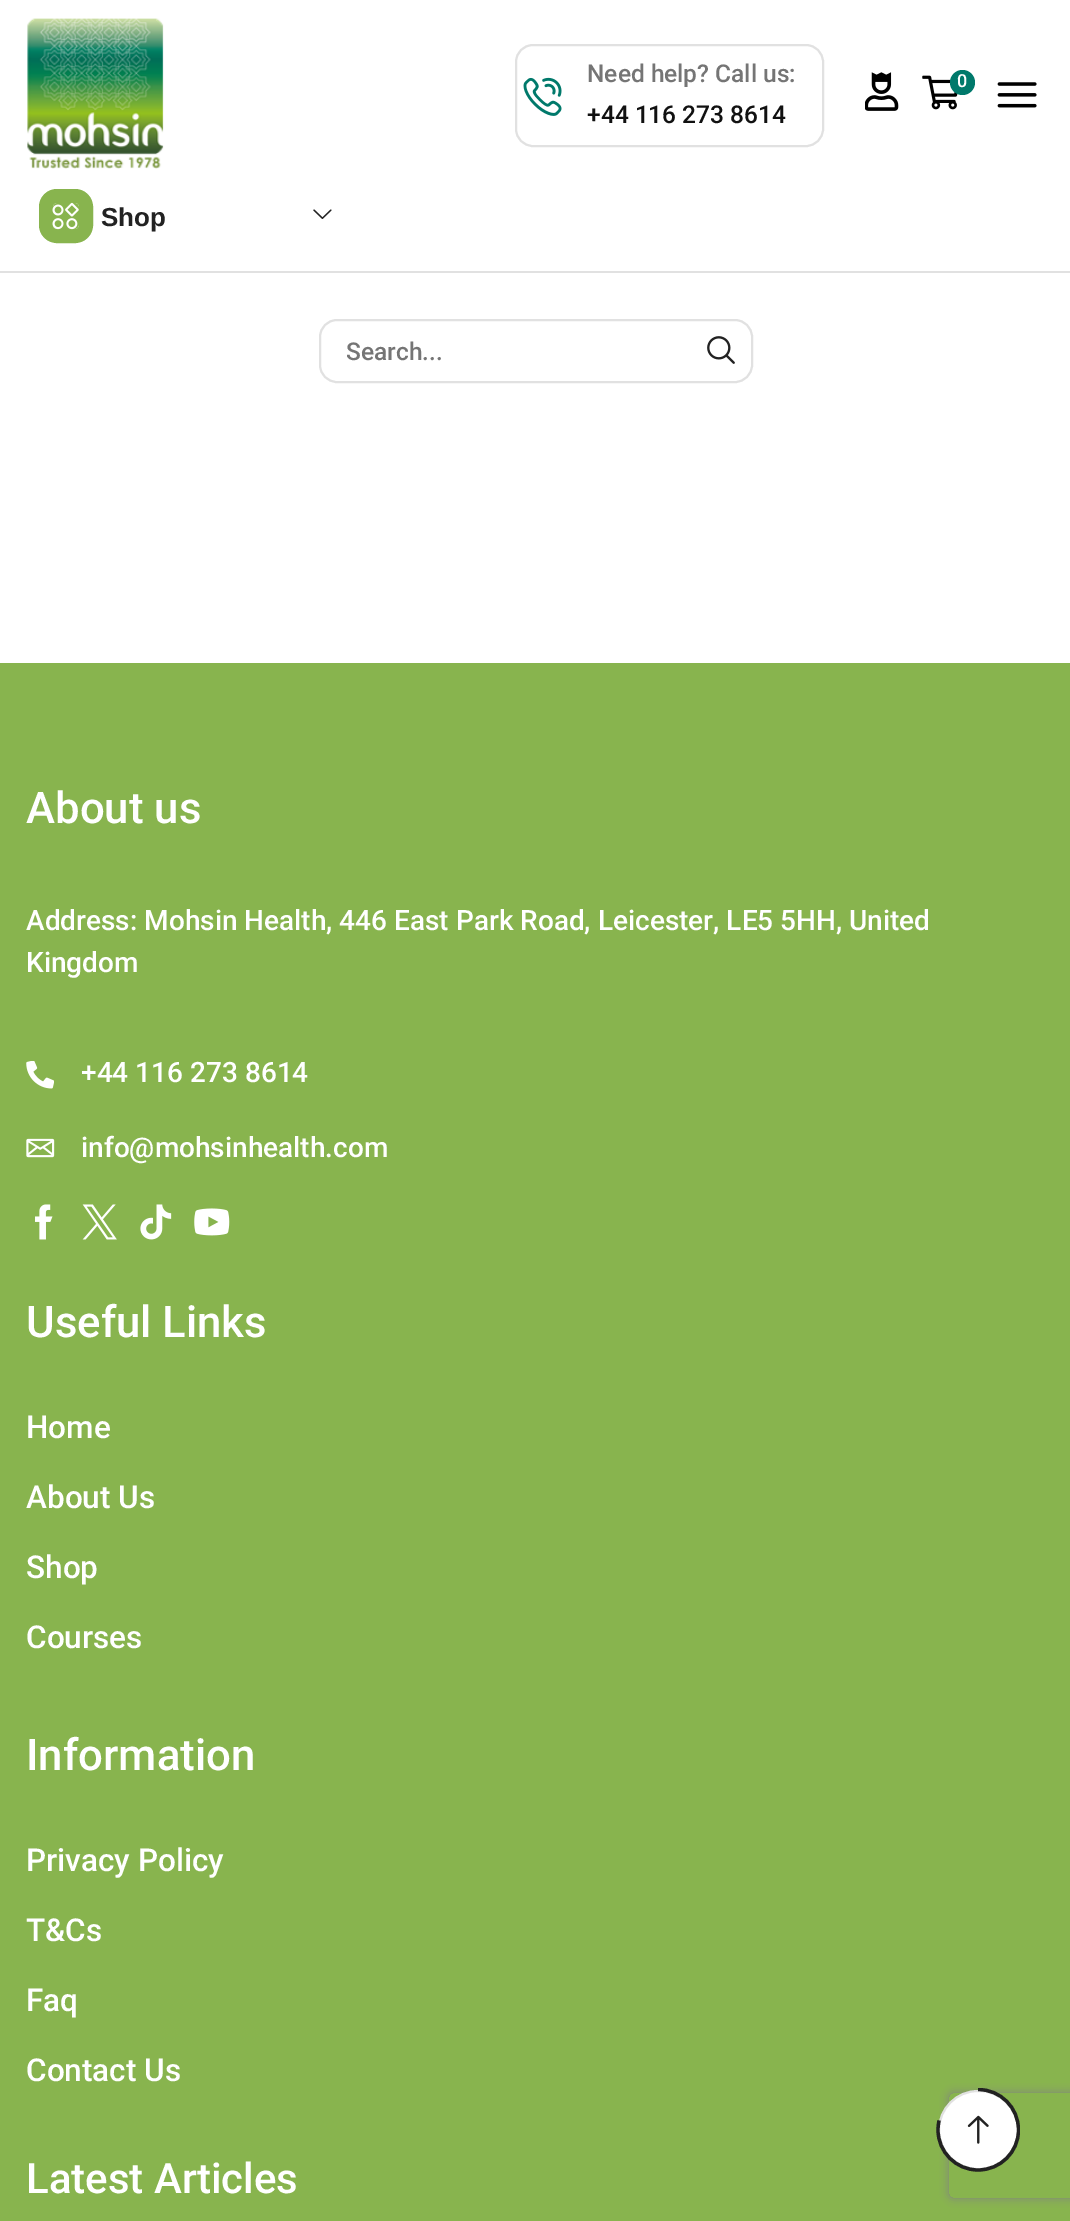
%!PS
<< /PageSize [1070 2221] /PageUsesTransparency true >> setpagedevice
/alpha { dup .setfillconstantalpha .setstrokeconstantalpha } def
/roundrect { 5 dict begin { /r /h /w /y /x } { exch def } forall
  x r add y moveto x w add y 2 copy h add r arct x w add y h add x 1 index r arct
  x y h add x y r arct x y 2 copy exch w add exch r arct closepath end } def
/shadow { 12 dict begin { /a /b /q /h /w /y /x } { exch def } forall gsave /was 0 def
  9 -2 -9 { dup b mul 4 div /e exch def 1 sub .425 mul 2.718 exch exp 1 add a .99 .min exch div /now exch def
    1 1 now sub 1 was sub div sub alpha /was now def
    w h .min e 2 mul add 0 gt { x e sub y e sub w e 2 mul add h e 2 mul add
      q e add b .6 mul add w h .min 2 div e add .min 0 .max roundrect fill } if } for grestore end } def
/picture { 5 dict begin { /h /w /y /x /name } { exch def } forall
  gsave x y translate w h scale
  w h 8 [w 0 0 h 0 0] name (r) file false 3 colorimage grestore end } def
0 .pushpdf14devicefilter
0 2221 translate 1 -1 scale
4 setmiterlimit
1 setgray
0 0 1070 2221 rectfill
0.882 setgray
0 271 1070 2 rectfill
(img1.rgb) 27 18 137 151 picture
2 setlinewidth
516 45 307 101 17 roundrect stroke
(img2.rgb) 523 77 39 39 picture
/Roboto-Medium [24.5 0 0 -24.5 0 0] selectfont
0.459 setgray
587 82 moveto (Need help? Call us:) show
0.067 setgray
587 123 moveto (+44 116 273 8614) show
(img3.rgb) 865 72 34 39 picture
(img4.rgb) 922 75 36 35 picture
0 0.475 0.42 setrgbcolor
newpath 962.5 82.5 12.5 0 360 arc closepath fill
/Roboto-Medium [18 0 0 -18 0 0] selectfont
1 setgray
957 87 moveto (0) show
(img5.rgb) 997 82 40 26 picture
0.533 0.706 0.306 setrgbcolor
14 setlinewidth
46 196 40 40 11 roundrect stroke
53 203 26 26 4 roundrect fill
(img6.rgb) 52 202 27 28 picture
/LiberationSans-Bold [26 0 0 -26 0 0] selectfont
0.133 setgray
101 226 moveto (Shop) show
(img7.rgb) 313 209 19 10 picture
0.882 setgray
2 setlinewidth
320 320 432 62 17 roundrect stroke
gsave
347 336 315 28 rectclip
/Roboto-Medium [24.5 0 0 -24.5 0 0] selectfont
0.459 setgray
346 360 moveto (Search...) show
grestore
(img8.rgb) 707 336 28 28 picture
0.533 0.706 0.306 setrgbcolor
0 663 1070 1558 rectfill
gsave
newpath 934 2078 moveto 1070 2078 lineto 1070 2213 lineto 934 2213 lineto closepath 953 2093 moveto 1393 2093 lineto 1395 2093 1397 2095 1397 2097 curveto 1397 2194 lineto 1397 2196 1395 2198 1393 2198 curveto 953 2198 lineto 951 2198 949 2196 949 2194 curveto 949 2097 lineto 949 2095 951 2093 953 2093 curveto closepath eoclip newpath
0.502 setgray
949 2093 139 105 4 4.5 1 shadow
grestore
1 setgray
939 2091 79 78 39 roundrect gsave fill grestore
0.882 setgray
stroke
gsave
936 2088 84 84 rectclip
0.133 setgray
3.3 setlinewidth
newpath 978 2089.5 moveto 1000.5 2089.5 1018.5 2107.5 1018.5 2130 curveto 1018.5 2152 1000.5 2170 978 2170 curveto 956 2170 938 2152 938 2130 curveto 938 2126.5 938.5 2123.5 939 2120.5 curveto stroke
grestore
(img9.rgb) 967 2115 22 29 picture
/Roboto-Medium [43.75 0 0 -43.75 0 0] selectfont
1 setgray
26 823 moveto (About us) show
/Roboto-Medium [28 0 0 -28 0 0] selectfont
26 930 moveto (Address: Mohsin Health, 446 East Park Road, Leicester, LE5 5HH, United) show
26 972 moveto (Kingdom) show
(img10.rgb) 26 1061 28 28 picture
81 1082 moveto (+44 116 273 8614) show
(img11.rgb) 26 1138 29 20 picture
81 1157 moveto (info@mohsinhealth.com) show
(img12.rgb) 35 1204 18 36 picture
(img13.rgb) 82 1204 35 36 picture
(img14.rgb) 140 1204 32 36 picture
(img15.rgb) 194 1208 36 28 picture
/Roboto-Medium [43.75 0 0 -43.75 0 0] selectfont
26 1337 moveto (Useful Links) show
/Roboto-Medium [31.5 0 0 -31.5 0 0] selectfont
26 1438 moveto (Home) show
26 1508 moveto (About Us) show
26 1578 moveto (Shop) show
26 1648 moveto (Courses) show
/Roboto-Medium [43.75 0 0 -43.75 0 0] selectfont
26 1770 moveto (Information) show
/Roboto-Medium [31.5 0 0 -31.5 0 0] selectfont
26 1871 moveto (Privacy Policy) show
26 1941 moveto (T&Cs) show
26 2011 moveto (Faq) show
26 2081 moveto (Contact Us) show
/Roboto-Medium [42 0 0 -42 0 0] selectfont
26 2193 moveto (Latest Articles) show
.poppdf14devicefilter showpage
